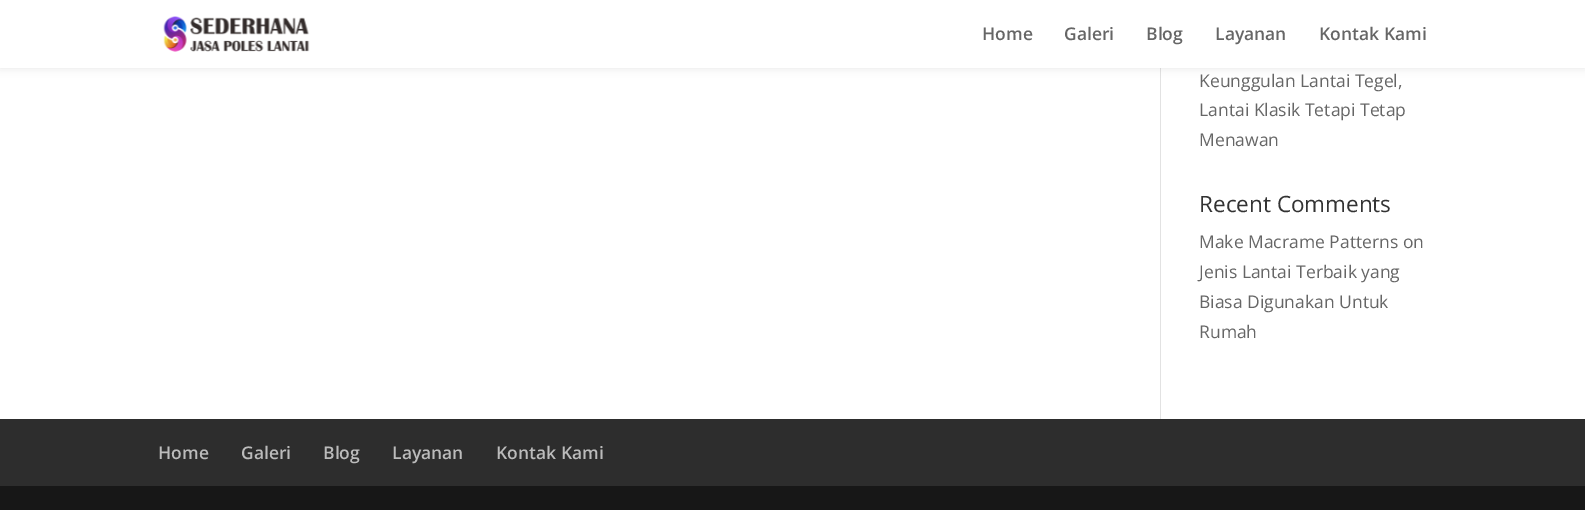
%!PS
<< /PageSize [1585 510] /PageUsesTransparency true >> setpagedevice
/alpha { dup .setfillconstantalpha .setstrokeconstantalpha } def
/roundrect { 5 dict begin { /r /h /w /y /x } { exch def } forall
  x r add y moveto x w add y 2 copy h add r arct x w add y h add x 1 index r arct
  x y h add x y r arct x y 2 copy exch w add exch r arct closepath end } def
/shadow { 12 dict begin { /a /b /q /h /w /y /x } { exch def } forall gsave /was 0 def
  9 -2 -9 { dup b mul 4 div /e exch def 1 sub .425 mul 2.718 exch exp 1 add a .99 .min exch div /now exch def
    1 1 now sub 1 was sub div sub alpha /was now def
    w h .min e 2 mul add 0 gt { x e sub y e sub w e 2 mul add h e 2 mul add
      q e add b .6 mul add w h .min 2 div e add .min 0 .max roundrect fill } if } for grestore end } def
/picture { 5 dict begin { /h /w /y /x /name } { exch def } forall
  gsave x y translate w h scale
  w h 8 [w 0 0 h 0 0] name (r) file false 3 colorimage grestore end } def
0 .pushpdf14devicefilter
0 510 translate 1 -1 scale
4 setmiterlimit
1 setgray
0 0 1585 510 rectfill
0.886 setgray
1160 68 1 351 rectfill
0 setgray
0 0 1585 68 0 4.5 0.1 shadow
1 setgray
0 0 1585 68 rectfill
(img1.rgb) 163 16 147 36 picture
/OpenSans-SemiBold [17.5 0 0 -17.5 0 0] selectfont
0.4 setgray
982 40 moveto (Home) show
1064 40 moveto (Galeri) show
1146 40 moveto (Blog) show
1215 40 moveto (Layanan) show
1319 40 moveto (Kontak Kami) show
/OpenSans-Regular [17.5 0 0 -17.5 0 0] selectfont
1199 87 moveto (Keunggulan Lantai Tegel,) show
1199 116 moveto (Lantai Klasik Tetapi Tetap) show
1199 146 moveto (Menawan) show
/OpenSans-Regular [22.5 0 0 -22.5 0 0] selectfont
0.2 setgray
1199 212 moveto (Recent Comments) show
/OpenSans-Regular [17.5 0 0 -17.5 0 0] selectfont
0.4 setgray
1199 248 moveto (Make Macrame Patterns on) show
1199 278 moveto (Jenis Lantai Terbaik yang) show
1199 308 moveto (Biasa Digunakan Untuk) show
1199 338 moveto (Rumah) show
0.176 setgray
0 419 1585 67 rectfill
/OpenSans-SemiBold [17.5 0 0 -17.5 0 0] selectfont
0.733 setgray
158 459 moveto (Home) show
241 459 moveto (Galeri) show
323 459 moveto (Blog) show
392 459 moveto (Layanan) show
496 459 moveto (Kontak Kami) show
0.09 setgray
0 486 1585 24 rectfill
.poppdf14devicefilter showpage
